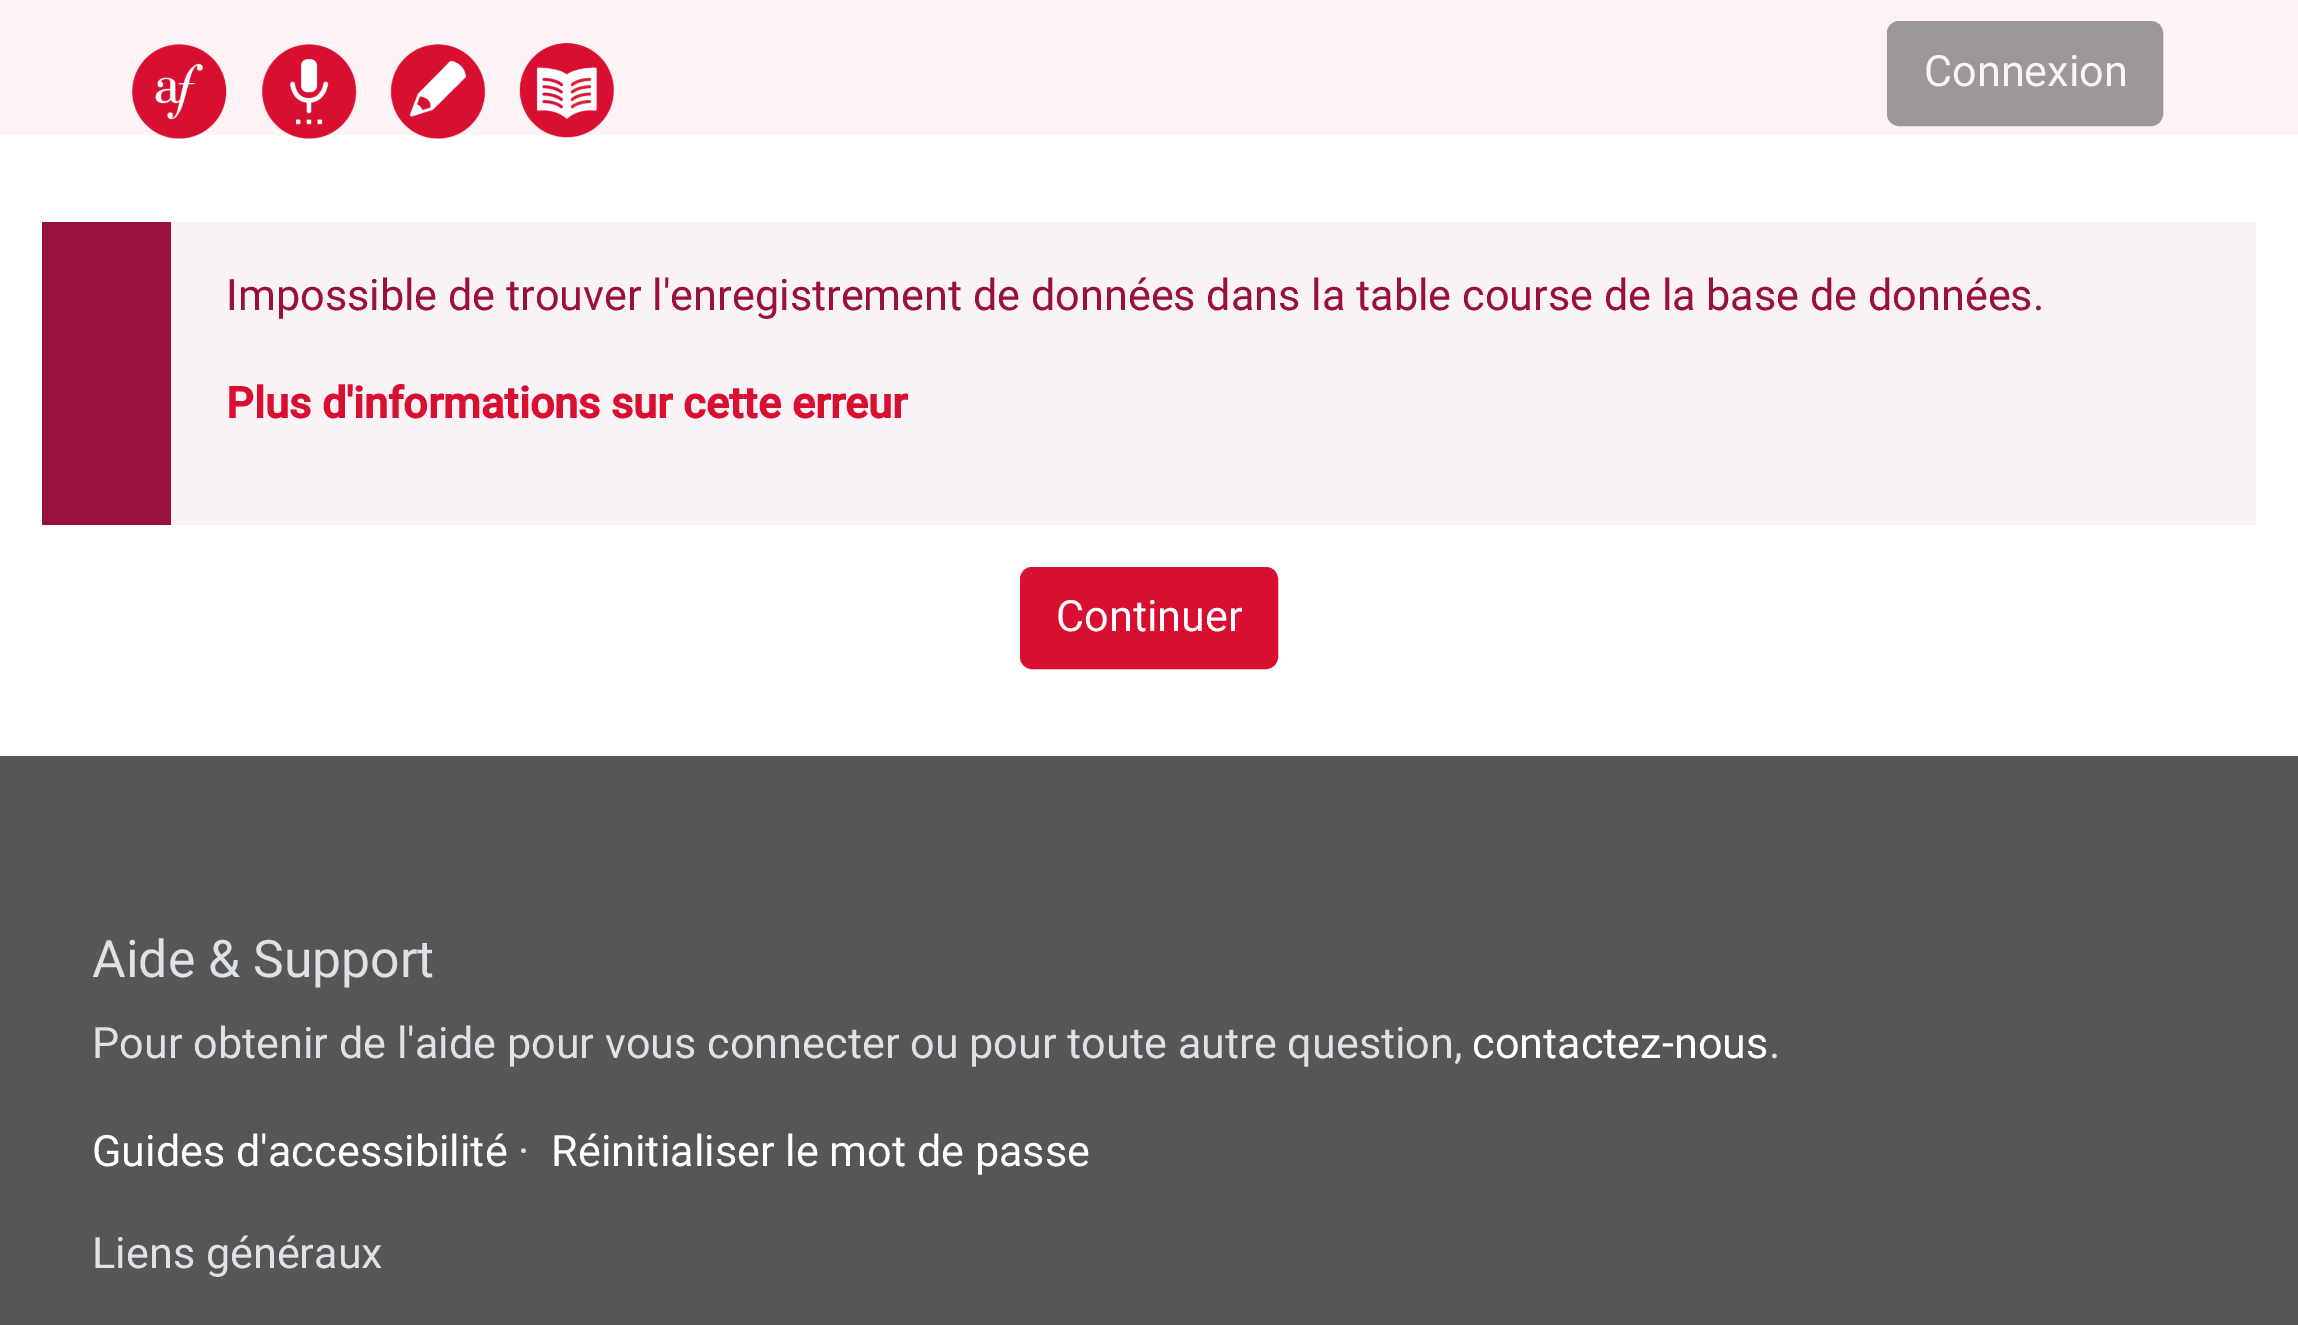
%!PS
<< /PageSize [2298 1325] >> setpagedevice
/roundrect { 5 dict begin { /r /h /w /y /x } { exch def } forall
  x r add y moveto x w add y 2 copy h add r arct x w add y h add x 1 index r arct
  x y h add x y r arct x y 2 copy exch w add exch r arct closepath end } def
/picture { 5 dict begin { /h /w /y /x /name } { exch def } forall
  gsave x y translate w h scale
  w h 8 [w 0 0 h 0 0] name (r) file false 3 colorimage grestore end } def
0 1325 translate 1 -1 scale
4 setmiterlimit
1 setgray
0 0 2298 1325 rectfill
0.992 0.953 0.961 setrgbcolor
0 0 2298 135 rectfill
(img1.rgb) 132 42 483 97 picture
0.616 0.592 0.596 setrgbcolor
1888.5 22.5 273 102 10.5 roundrect gsave fill grestore
3 setlinewidth
stroke
/Roboto-Regular [43.2 0 0 -43.2 0 0] selectfont
0.976 0.957 0.961 setrgbcolor
1924 86 moveto (Connexion) show
0.98 0.953 0.961 setrgbcolor
171 222 2085 303 rectfill
0.6 0.059 0.239 setrgbcolor
42 222 129 303 rectfill
226 310 moveto (Impossible de trouver l'enregistrement de données dans la table course de la base de données.) show
/Roboto-Bold [43.2 0 0 -43.2 0 0] selectfont
0.851 0.059 0.192 setrgbcolor
226 418 moveto (Plus d'informations sur cette erreur) show
1021.5 568.5 255 99 10.5 roundrect gsave fill grestore
stroke
/Roboto-Regular [43.2 0 0 -43.2 0 0] selectfont
1 setgray
1056 631 moveto (Continuer) show
0.337 setgray
0 756 2298 569 rectfill
/Roboto-Regular [51.75 0 0 -51.75 0 0] selectfont
0.871 0.886 0.902 setrgbcolor
92 977 moveto (Aide & Support) show
/Roboto-Regular [43.2 0 0 -43.2 0 0] selectfont
92 1058 moveto (Pour obtenir de l'aide pour vous connecter ou pour toute autre question,) show
1 setgray
1472 1058 moveto (contactez-nous) show
0.871 0.886 0.902 setrgbcolor
1769 1058 moveto (.) show
1 setgray
92 1166 moveto (Guides d'accessibilité) show
0.871 0.886 0.902 setrgbcolor
518 1166 moveto (·) show
1 setgray
551 1166 moveto (Réinitialiser le mot de passe) show
0.871 0.886 0.902 setrgbcolor
92 1268 moveto (Liens généraux) show
showpage
